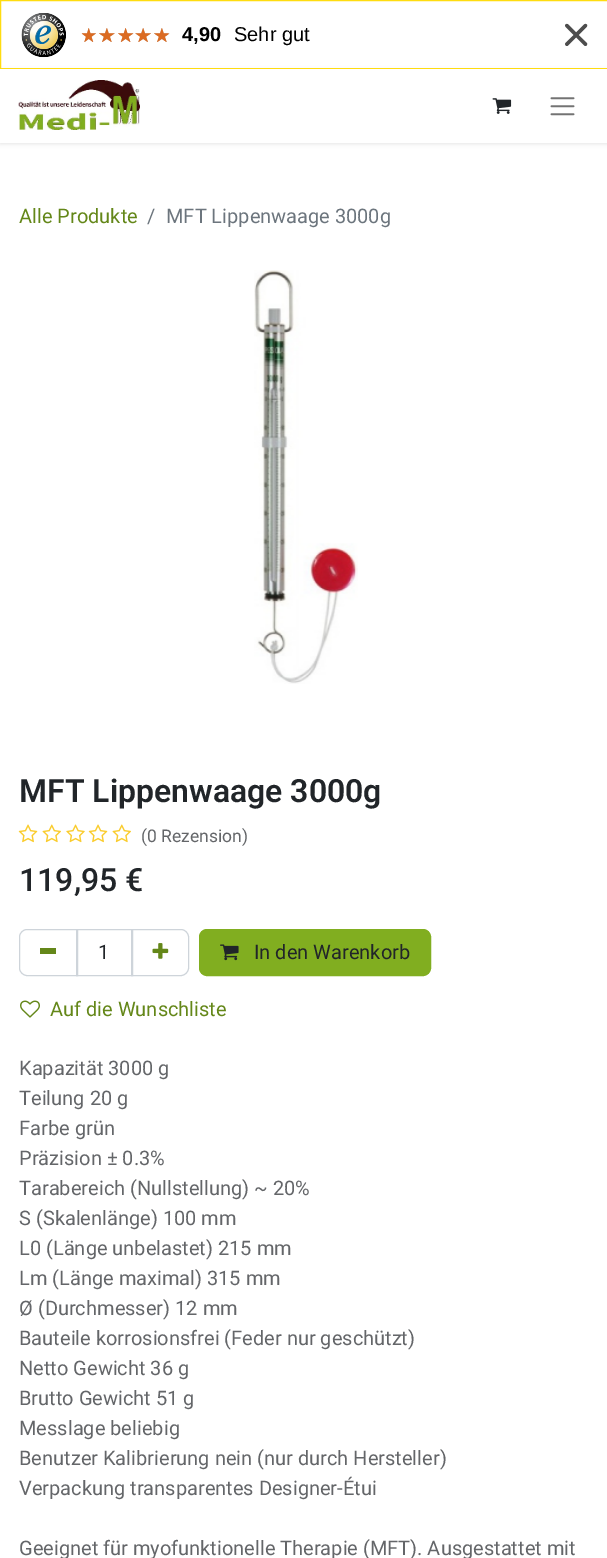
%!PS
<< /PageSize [607 1558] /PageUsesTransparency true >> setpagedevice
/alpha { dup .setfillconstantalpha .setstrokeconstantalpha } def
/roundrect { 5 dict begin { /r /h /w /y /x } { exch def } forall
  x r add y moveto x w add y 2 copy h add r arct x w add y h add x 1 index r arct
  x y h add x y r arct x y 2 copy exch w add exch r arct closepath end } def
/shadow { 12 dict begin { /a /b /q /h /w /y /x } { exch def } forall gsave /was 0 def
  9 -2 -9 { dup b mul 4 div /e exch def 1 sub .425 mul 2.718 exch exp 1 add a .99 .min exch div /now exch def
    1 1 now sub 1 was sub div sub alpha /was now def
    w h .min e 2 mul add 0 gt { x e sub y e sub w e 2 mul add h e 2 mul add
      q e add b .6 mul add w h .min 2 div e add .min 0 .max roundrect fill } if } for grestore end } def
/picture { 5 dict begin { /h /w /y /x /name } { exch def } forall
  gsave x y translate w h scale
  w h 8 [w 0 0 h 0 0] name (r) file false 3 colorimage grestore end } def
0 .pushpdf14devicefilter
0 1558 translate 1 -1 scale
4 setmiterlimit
1 setgray
0 0 607 1558 rectfill
0 setgray
0 70 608 74 0 2 0.1 shadow
1 0.863 0.059 setrgbcolor
0.5 0.5 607 68 rectstroke
(img1.rgb) 21 13 45 45 picture
(img7.rgb) 82 28 14 14 picture
(img2.rgb) 81 28 15 14 picture
(img8.rgb) 99 28 16 14 picture
(img3.rgb) 99 28 16 14 picture
(img9.rgb) 118 28 16 14 picture
(img4.rgb) 118 28 16 14 picture
(img10.rgb) 135 28 16 14 picture
(img5.rgb) 135 28 16 14 picture
(img8.rgb) 154 28 16 14 picture
(img6.rgb) 154 28 15 14 picture
/LiberationSans-Bold [20 0 0 -20 0 0] selectfont
0 setgray
182 41 moveto (4,90) show
/LiberationSans-Regular [20 0 0 -20 0 0] selectfont
234 41 moveto (Sehr gut) show
(img11.rgb) 565 23 23 23 picture
1 setgray
0 69 607 74 rectfill
(img12.rgb) 18 80 122 50 picture
(img13.rgb) 492 98 20 16 picture
(img14.rgb) 550 97 25 19 picture
/Roboto-Regular [20 0 0 -20 0 0] selectfont
0.392 0.529 0.098 setrgbcolor
19 223 moveto (Alle Produkte) show
0.424 0.459 0.49 setrgbcolor
147 223 moveto (/) show
166 223 moveto (MFT Lippenwaage 3000g) show
(img15.rgb) 254 270 104 414 picture
/Roboto-SemiBold [32 0 0 -32 0 0] selectfont
0.129 0.145 0.161 setrgbcolor
19 802 moveto (MFT Lippenwaage 3000g) show
(img16.rgb) 18 824 20 19 picture
(img17.rgb) 42 824 19 19 picture
(img18.rgb) 66 824 19 19 picture
(img16.rgb) 88 824 20 19 picture
(img17.rgb) 112 824 19 19 picture
/Roboto-Regular [17.5 0 0 -17.5 0 0] selectfont
0.392 0.4 0.412 setrgbcolor
141 842 moveto (\(0 Rezension\)) show
/Roboto-Medium [32 0 0 -32 0 0] selectfont
0.129 0.145 0.161 setrgbcolor
19 891 moveto (119,95 €) show
0.808 0.831 0.855 setrgbcolor
76.5 929.5 56 46 rectstroke
newpath 27 929.5 moveto 77.5 929.5 lineto 77.5 975.5 lineto 27 975.5 lineto 23 975.5 19.5 972 19.5 968 curveto 19.5 937 lineto 19.5 933 23 929.5 27 929.5 curveto closepath stroke
0.392 0.529 0.098 setrgbcolor
40 948 16 6 rectfill
/Roboto-Regular [20 0 0 -20 0 0] selectfont
0.129 0.145 0.161 setrgbcolor
98 959 moveto (1) show
0.808 0.831 0.855 setrgbcolor
newpath 131.5 929.5 moveto 181 929.5 lineto 185 929.5 188.5 933 188.5 937 curveto 188.5 968 lineto 188.5 972 185 975.5 181 975.5 curveto 131.5 975.5 lineto closepath stroke
(img19.rgb) 152 943 17 16 picture
0.506 0.682 0.125 setrgbcolor
199.5 929.5 231 46 7.5 roundrect gsave fill grestore
stroke
(img20.rgb) 220 944 19 17 picture
0.129 0.145 0.161 setrgbcolor
254 959 moveto (In den Warenkorb) show
(img21.rgb) 20 1000 20 18 picture
0.392 0.529 0.098 setrgbcolor
50 1016 moveto (Auf die Wunschliste) show
0.392 0.4 0.412 setrgbcolor
19 1075 moveto (Kapazität 3000 g) show
19 1105 moveto (Teilung 20 g) show
19 1135 moveto (Farbe grün) show
19 1165 moveto (Präzision ± 0.3%) show
19 1195 moveto (Tarabereich \(Nullstellung\) ~ 20%) show
19 1225 moveto (S \(Skalenlänge\) 100 mm) show
19 1255 moveto (L0 \(Länge unbelastet\) 215 mm) show
19 1285 moveto (Lm \(Länge maximal\) 315 mm) show
19 1315 moveto (Ø \(Durchmesser\) 12 mm) show
19 1345 moveto (Bauteile korrosionsfrei \(Feder nur geschützt\)) show
19 1375 moveto (Netto Gewicht 36 g) show
19 1405 moveto (Brutto Gewicht 51 g) show
19 1435 moveto (Messlage beliebig) show
19 1465 moveto (Benutzer Kalibrierung nein \(nur durch Hersteller\)) show
19 1495 moveto (Verpackung transparentes Designer-Étui) show
19 1555 moveto (Geeignet für myofunktionelle Therapie \(MFT\). Ausgestattet mit) show
.poppdf14devicefilter showpage
